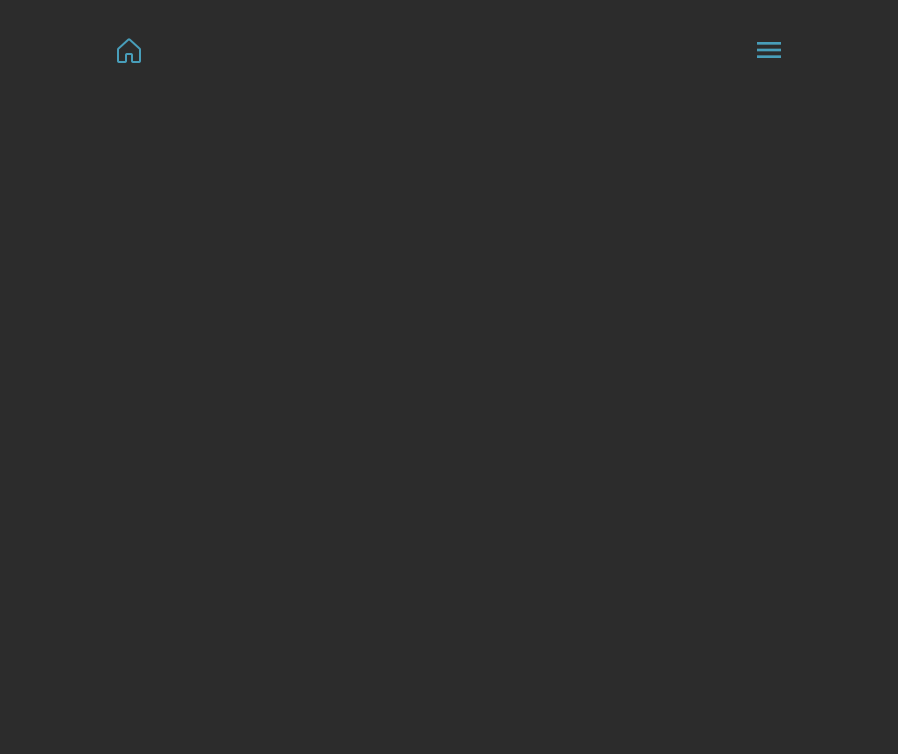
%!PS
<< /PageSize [898 754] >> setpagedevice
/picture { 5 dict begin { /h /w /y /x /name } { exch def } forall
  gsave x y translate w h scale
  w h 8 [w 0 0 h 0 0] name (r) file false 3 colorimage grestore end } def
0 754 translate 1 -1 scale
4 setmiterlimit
0.173 setgray
0 0 898 754 rectfill
(img1.rgb) 117 38 24 25 picture
(img2.rgb) 757 42 24 16 picture
showpage
